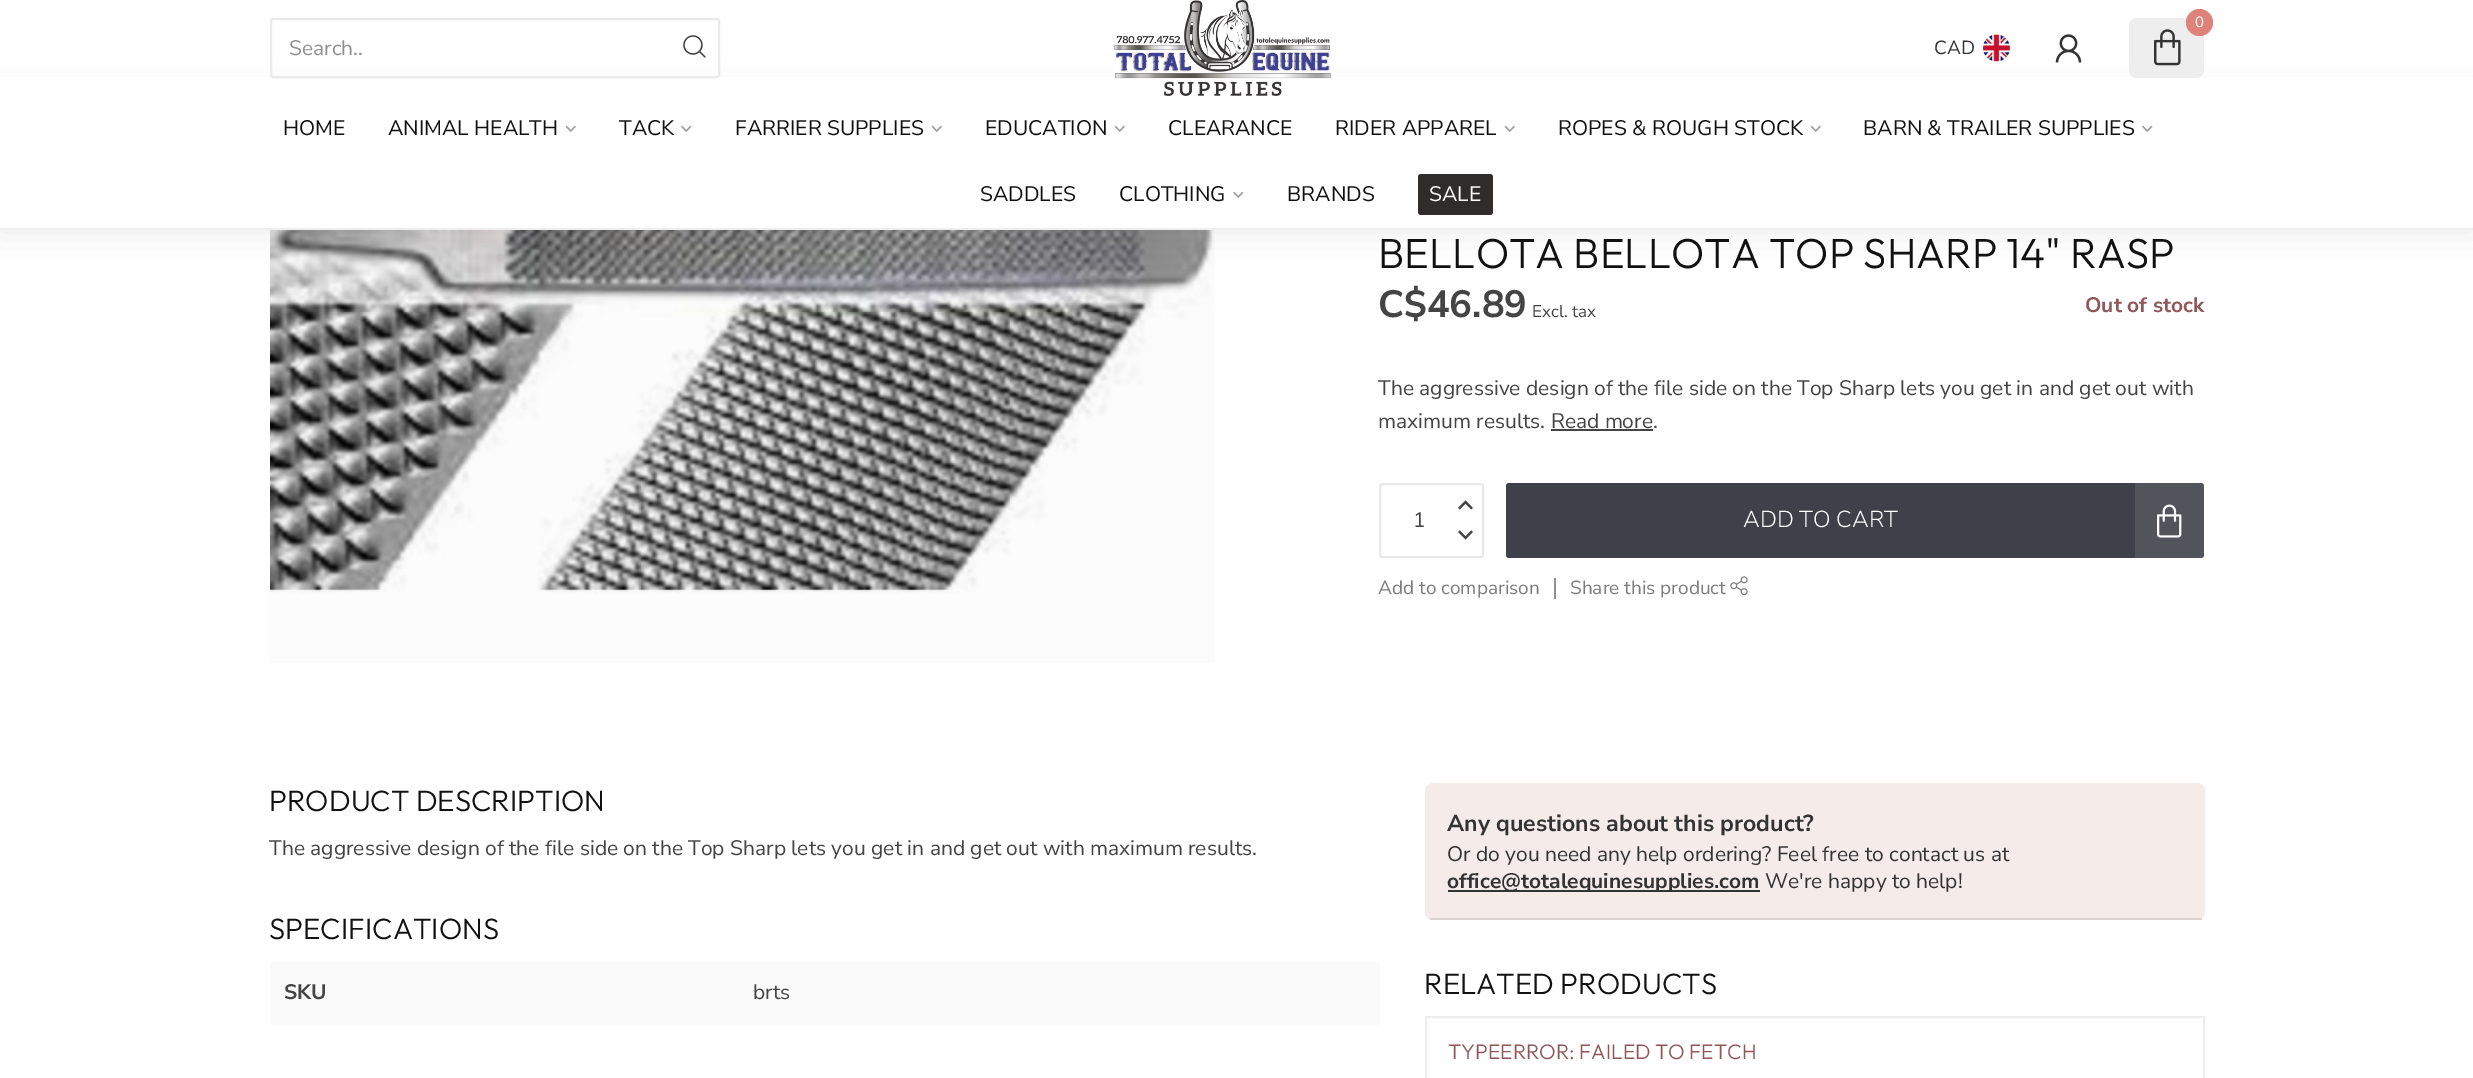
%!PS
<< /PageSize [2473 1078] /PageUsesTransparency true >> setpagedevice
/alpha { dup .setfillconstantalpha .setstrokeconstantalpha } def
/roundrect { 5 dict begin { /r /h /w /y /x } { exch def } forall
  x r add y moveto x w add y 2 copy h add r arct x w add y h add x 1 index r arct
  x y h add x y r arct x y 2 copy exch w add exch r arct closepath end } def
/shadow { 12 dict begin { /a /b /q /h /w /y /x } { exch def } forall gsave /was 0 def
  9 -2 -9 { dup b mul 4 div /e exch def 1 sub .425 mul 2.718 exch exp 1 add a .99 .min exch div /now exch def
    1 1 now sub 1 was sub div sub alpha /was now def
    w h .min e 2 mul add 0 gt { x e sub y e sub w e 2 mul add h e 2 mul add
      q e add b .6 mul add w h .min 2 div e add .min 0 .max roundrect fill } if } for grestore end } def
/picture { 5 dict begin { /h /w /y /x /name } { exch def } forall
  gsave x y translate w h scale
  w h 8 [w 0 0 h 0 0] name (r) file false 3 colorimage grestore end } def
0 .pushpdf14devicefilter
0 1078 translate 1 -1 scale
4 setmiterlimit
1 setgray
0 0 2473 1078 rectfill
0.988 setgray
270 594 945 69 rectfill
(img8.rgb) 270 230 945 364 picture
0 setgray
0 96 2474 134 0 16.5 0.08 shadow
1 setgray
0 77 2473 151 rectfill
0.918 setgray
2 setlinewidth
271 19 448 58 2 roundrect stroke
/NunitoSans-Regular [21 0 0 -21 0 0] selectfont
0.561 setgray
289 55 moveto (Search..) show
(img1.rgb) 683 35 23 23 picture
(img2.rgb) 1114 0 217 96 picture
0.933 setgray
2129 18 75 60 8 roundrect fill
0.875 0.51 0.475 setrgbcolor
newpath 2199.5 22.5 13.5 0 360 arc closepath fill
/NunitoSans-Regular [15 0 0 -15 0 0] selectfont
1 setgray
2195 27 moveto (0) show
(img3.rgb) 2154 29 27 37 picture
/NunitoSans-Regular [19 0 0 -19 0 0] selectfont
0.2 setgray
1934 54 moveto (CAD) show
(img4.rgb) 1983 34 27 28 picture
(img5.rgb) 2055 34 27 29 picture
0.933 setgray
0 228 2473 2 rectfill
/NunitoSans-Regular [21 0 0 -21 0 0] selectfont
0.067 setgray
283 135 moveto (HOME) show
388 135 moveto (ANIMAL HEALTH) show
(img6.rgb) 565 125 11 7 picture
619 135 moveto (TACK) show
(img7.rgb) 681 125 11 7 picture
735 135 moveto (FARRIER SUPPLIES) show
(img6.rgb) 931 125 11 7 picture
985 135 moveto (EDUCATION) show
(img6.rgb) 1114 125 11 7 picture
1168 135 moveto (CLEARANCE) show
1335 135 moveto (RIDER APPAREL) show
(img6.rgb) 1504 125 11 7 picture
1558 135 moveto (ROPES & ROUGH STOCK) show
(img6.rgb) 1810 125 11 7 picture
1863 135 moveto (BARN & TRAILER SUPPLIES) show
(img7.rgb) 2142 125 11 7 picture
980 201 moveto (SADDLES) show
1119 201 moveto (CLOTHING) show
(img7.rgb) 1233 191 11 7 picture
1287 201 moveto (BRANDS) show
0.192 0.173 0.173 setrgbcolor
1418 174 75 41 3 roundrect fill
1 setgray
1429 201 moveto (SALE) show
/Outfit-Light [42 0 0 -42 0 0] selectfont
0.067 setgray
1378 268 moveto (BELLOTA BELLOTA TOP SHARP 14" RASP) show
/NunitoSans-Bold [38 0 0 -38 0 0] selectfont
0.267 setgray
1378 317 moveto (C$46.89) show
/NunitoSans-Regular [17 0 0 -17 0 0] selectfont
1532 317 moveto (Excl. tax) show
/NunitoSans-Bold [21 0 0 -21 0 0] selectfont
0.565 0.337 0.349 setrgbcolor
2085 312 moveto (Out of stock) show
/NunitoSans-Regular [21 0 0 -21 0 0] selectfont
0.267 setgray
1378 395 moveto (The aggressive design of the file side on the Top Sharp lets you get in and get out with) show
1378 428 moveto (maximum results. Read more.) show
1551 429 102 2 rectfill
0.91 setgray
1380 484 103 73 2 roundrect stroke
(img9.rgb) 1458 500 15 10 picture
0.267 setgray
1413 527 moveto (1) show
(img10.rgb) 1458 530 15 10 picture
0.243 0.255 0.29 setrgbcolor
1506 483 698 75 3 roundrect fill
/NunitoSans-Light [23.1 0 0 -23.1 0 0] selectfont
1 setgray
1743 527 moveto (ADD TO CART) show
(img11.rgb) 2157 504 25 34 picture
0.1 alpha
2135 483 69 75 rectfill
/NunitoSans-Regular [19 0 0 -19 0 0] selectfont
1 alpha
0.486 setgray
1378 594 moveto (Add to comparison) show
0.561 setgray
1554 578 2 21 rectfill
0.486 setgray
1570 594 moveto (Share this product) show
(img12.rgb) 1730 576 18 20 picture
/Outfit-Light [29.4 0 0 -29.4 0 0] selectfont
0.067 setgray
269 811 moveto (PRODUCT DESCRIPTION) show
/NunitoSans-Regular [21 0 0 -21 0 0] selectfont
0.267 setgray
269 855 moveto (The aggressive design of the file side on the Top Sharp lets you get in and get out with maximum results.) show
/Outfit-Light [29.4 0 0 -29.4 0 0] selectfont
0.067 setgray
269 939 moveto (SPECIFICATIONS) show
0.98 setgray
270 962 1110 63 rectfill
/NunitoSans-Bold [21 0 0 -21 0 0] selectfont
0.267 setgray
284 999 moveto (SKU) show
/NunitoSans-Regular [21 0 0 -21 0 0] selectfont
753 999 moveto (brts) show
0.961 0.922 0.91 setrgbcolor
1425 783 780 137 8 roundrect fill
0.863 0.827 0.816 setrgbcolor
1430 918 772 2 rectfill
/NunitoSans-Bold [23.1 0 0 -23.1 0 0] selectfont
0.2 setgray
1447 831 moveto (Any questions about this product?) show
/NunitoSans-Regular [21 0 0 -21 0 0] selectfont
1447 861 moveto (Or do you need any help ordering? Feel free to contact us at) show
1448 890 312 2 rectfill
/NunitoSans-Bold [21 0 0 -21 0 0] selectfont
1447 888 moveto (office@totalequinesupplies.com) show
/NunitoSans-Regular [21 0 0 -21 0 0] selectfont
1765 888 moveto (We're happy to help!) show
/Outfit-Light [29.4 0 0 -29.4 0 0] selectfont
0.067 setgray
1424 994 moveto (RELATED PRODUCTS) show
0.933 setgray
1426 1017 778 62 rectstroke
/Outfit-Light [21 0 0 -21 0 0] selectfont
0.565 0.337 0.349 setrgbcolor
1448 1059 moveto (TYPEERROR: FAILED TO FETCH) show
.poppdf14devicefilter showpage
